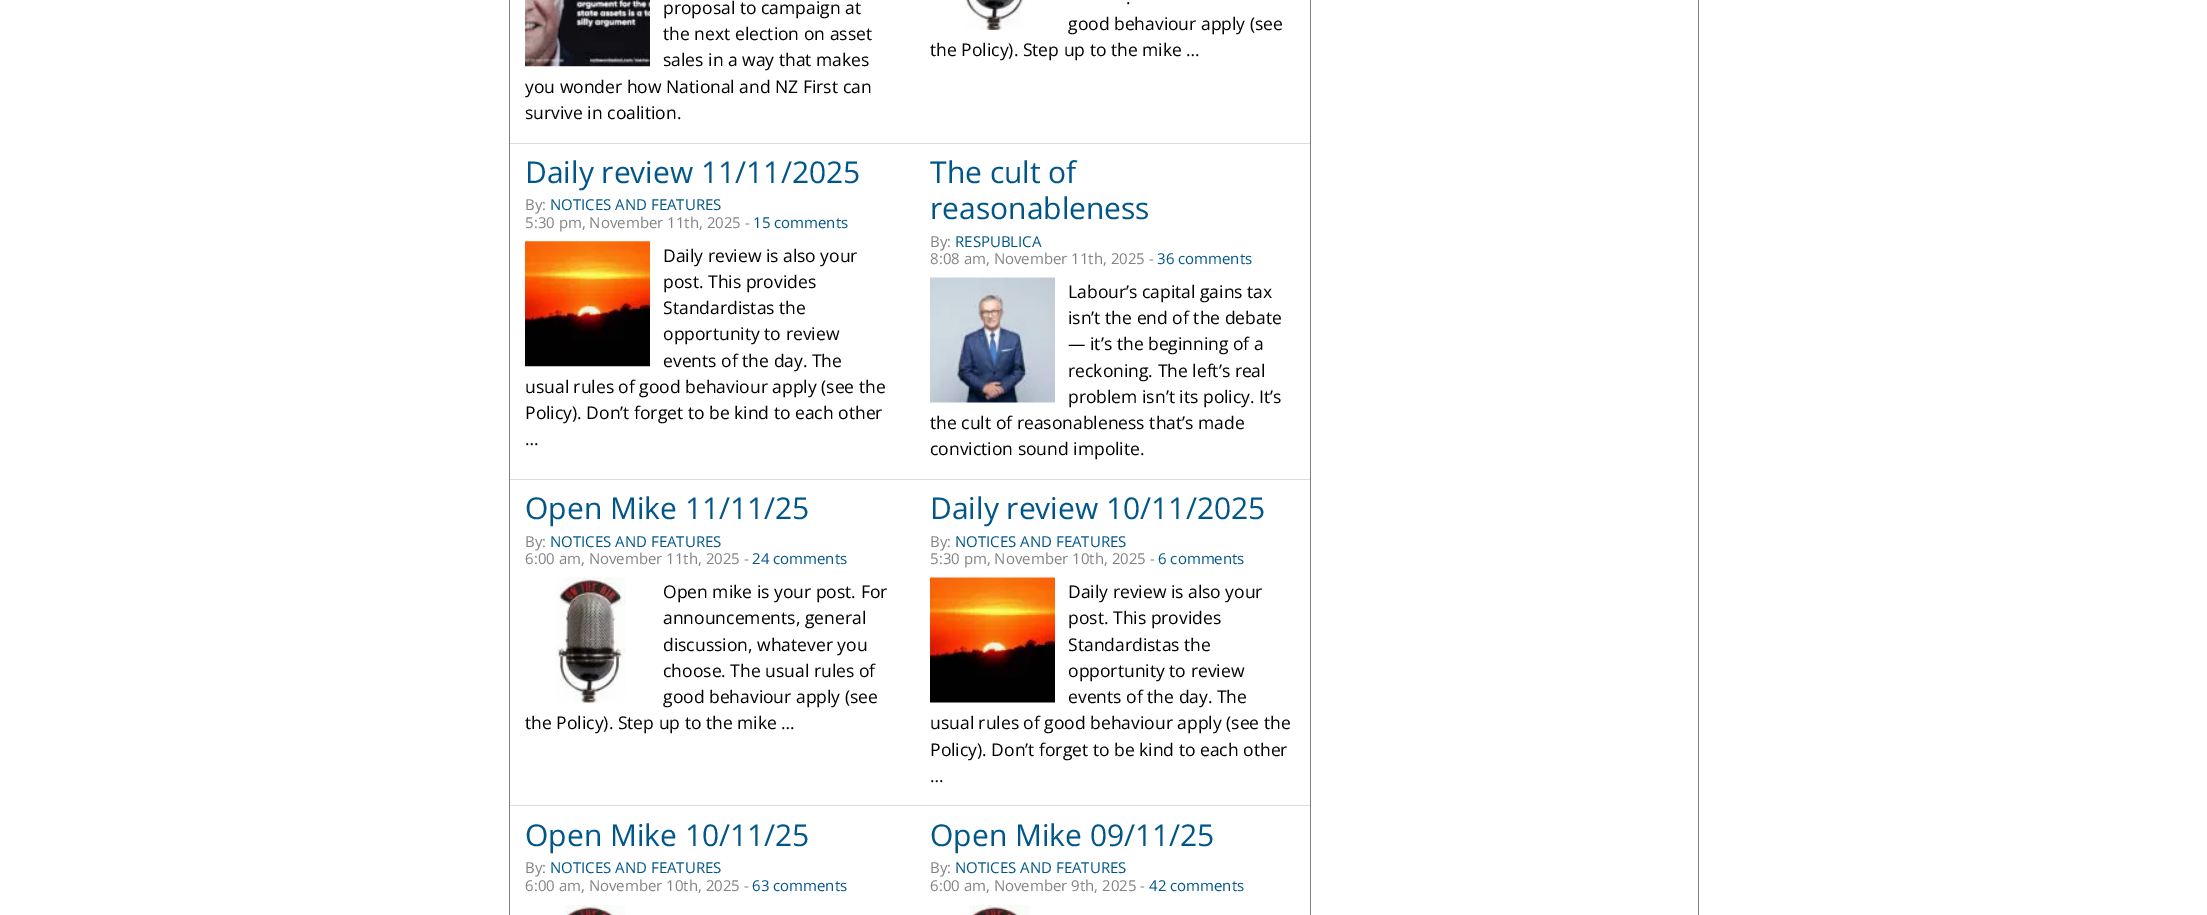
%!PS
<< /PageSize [2207 915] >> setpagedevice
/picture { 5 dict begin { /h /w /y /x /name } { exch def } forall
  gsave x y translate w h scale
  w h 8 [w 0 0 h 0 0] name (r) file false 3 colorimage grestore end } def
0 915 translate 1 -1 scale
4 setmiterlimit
1 setgray
0 0 2207 915 rectfill
0.498 setgray
newpath 1699 -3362 moveto 1699 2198 lineto 1698 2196 lineto 1698 -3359 lineto closepath fill
newpath 509 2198 moveto 509 -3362 lineto 510 -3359 lineto 510 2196 lineto closepath fill
0.502 setgray
1310 0 1 915 rectfill
0.867 setgray
510 143 800 1 rectfill
(img1.rgb) 525 0 125 67 picture
/OpenSans-Regular [17.5 0 0 -17.5 0 0] selectfont
0 setgray
663 14 moveto (proposal to campaign at) show
663 40 moveto (the next election on asset) show
663 66 moveto (sales in a way that makes) show
525 93 moveto (you wonder how National and NZ First can) show
525 119 moveto (survive in coalition.) show
(img2.rgb) 965 0 60 30 picture
1126 4 moveto (.) show
1068 30 moveto (good behaviour apply \(see) show
930 56 moveto (the Policy\). Step up to the mike …) show
0.867 setgray
510 479 800 1 rectfill
/OpenSans-Regular [30 0 0 -30 0 0] selectfont
0 0.337 0.537 setrgbcolor
525 183 moveto (Daily review 11/11/2025) show
/OpenSans-Regular [15 0 0 -15 0 0] selectfont
0.51 0.514 0.51 setrgbcolor
525 210 moveto (By:) show
0 0.337 0.537 setrgbcolor
550 210 moveto (NOTICES AND FEATURES) show
0.51 0.514 0.51 setrgbcolor
525 228 moveto (5:30 pm, November 11th, 2025 -) show
0 0.337 0.537 setrgbcolor
753 228 moveto (15 comments) show
(img3.rgb) 525 241 125 126 picture
/OpenSans-Regular [17.5 0 0 -17.5 0 0] selectfont
0 setgray
663 262 moveto (Daily review is also your) show
663 288 moveto (post. This provides) show
663 314 moveto (Standardistas the) show
663 340 moveto (opportunity to review) show
663 367 moveto (events of the day. The) show
525 393 moveto (usual rules of good behaviour apply \(see the) show
525 419 moveto (Policy\). Don’t forget to be kind to each other) show
525 445 moveto (…) show
/OpenSans-Regular [30 0 0 -30 0 0] selectfont
0 0.337 0.537 setrgbcolor
930 183 moveto (The cult of) show
930 219 moveto (reasonableness) show
/OpenSans-Regular [15 0 0 -15 0 0] selectfont
0.51 0.514 0.51 setrgbcolor
930 247 moveto (By:) show
0 0.337 0.537 setrgbcolor
955 247 moveto (RESPUBLICA) show
0.51 0.514 0.51 setrgbcolor
930 264 moveto (8:08 am, November 11th, 2025 -) show
0 0.337 0.537 setrgbcolor
1157 264 moveto (36 comments) show
(img4.rgb) 930 277 125 126 picture
/OpenSans-Regular [17.5 0 0 -17.5 0 0] selectfont
0 setgray
1068 298 moveto (Labour’s capital gains tax) show
1068 324 moveto (isn’t the end of the debate) show
1068 350 moveto (— it’s the beginning of a) show
1068 377 moveto (reckoning. The left’s real) show
1068 403 moveto (problem isn’t its policy. It’s) show
930 429 moveto (the cult of reasonableness that’s made) show
930 455 moveto (conviction sound impolite.) show
0.867 setgray
510 805 800 1 rectfill
/OpenSans-Regular [30 0 0 -30 0 0] selectfont
0 0.337 0.537 setrgbcolor
525 519 moveto (Open Mike 11/11/25) show
/OpenSans-Regular [15 0 0 -15 0 0] selectfont
0.51 0.514 0.51 setrgbcolor
525 547 moveto (By:) show
0 0.337 0.537 setrgbcolor
550 547 moveto (NOTICES AND FEATURES) show
0.51 0.514 0.51 setrgbcolor
525 564 moveto (6:00 am, November 11th, 2025 -) show
0 0.337 0.537 setrgbcolor
752 564 moveto (24 comments) show
(img5.rgb) 555 577 71 126 picture
/OpenSans-Regular [17.5 0 0 -17.5 0 0] selectfont
0 setgray
663 598 moveto (Open mike is your post. For) show
663 624 moveto (announcements, general) show
663 651 moveto (discussion, whatever you) show
663 677 moveto (choose. The usual rules of) show
663 703 moveto (good behaviour apply \(see) show
525 729 moveto (the Policy\). Step up to the mike …) show
/OpenSans-Regular [30 0 0 -30 0 0] selectfont
0 0.337 0.537 setrgbcolor
930 519 moveto (Daily review 10/11/2025) show
/OpenSans-Regular [15 0 0 -15 0 0] selectfont
0.51 0.514 0.51 setrgbcolor
930 547 moveto (By:) show
0 0.337 0.537 setrgbcolor
955 547 moveto (NOTICES AND FEATURES) show
0.51 0.514 0.51 setrgbcolor
930 564 moveto (5:30 pm, November 10th, 2025 -) show
0 0.337 0.537 setrgbcolor
1158 564 moveto (6 comments) show
(img6.rgb) 930 577 125 126 picture
/OpenSans-Regular [17.5 0 0 -17.5 0 0] selectfont
0 setgray
1068 598 moveto (Daily review is also your) show
1068 624 moveto (post. This provides) show
1068 651 moveto (Standardistas the) show
1068 677 moveto (opportunity to review) show
1068 703 moveto (events of the day. The) show
930 729 moveto (usual rules of good behaviour apply \(see the) show
930 756 moveto (Policy\). Don’t forget to be kind to each other) show
930 782 moveto (…) show
/OpenSans-Regular [30 0 0 -30 0 0] selectfont
0 0.337 0.537 setrgbcolor
525 846 moveto (Open Mike 10/11/25) show
/OpenSans-Regular [15 0 0 -15 0 0] selectfont
0.51 0.514 0.51 setrgbcolor
525 873 moveto (By:) show
0 0.337 0.537 setrgbcolor
550 873 moveto (NOTICES AND FEATURES) show
0.51 0.514 0.51 setrgbcolor
525 891 moveto (6:00 am, November 10th, 2025 -) show
0 0.337 0.537 setrgbcolor
752 891 moveto (63 comments) show
(img7.rgb) 564 905 61 10 picture
/OpenSans-Regular [30 0 0 -30 0 0] selectfont
930 846 moveto (Open Mike 09/11/25) show
/OpenSans-Regular [15 0 0 -15 0 0] selectfont
0.51 0.514 0.51 setrgbcolor
930 873 moveto (By:) show
0 0.337 0.537 setrgbcolor
955 873 moveto (NOTICES AND FEATURES) show
0.51 0.514 0.51 setrgbcolor
930 891 moveto (6:00 am, November 9th, 2025 -) show
0 0.337 0.537 setrgbcolor
1149 891 moveto (42 comments) show
(img8.rgb) 969 905 61 10 picture
showpage
